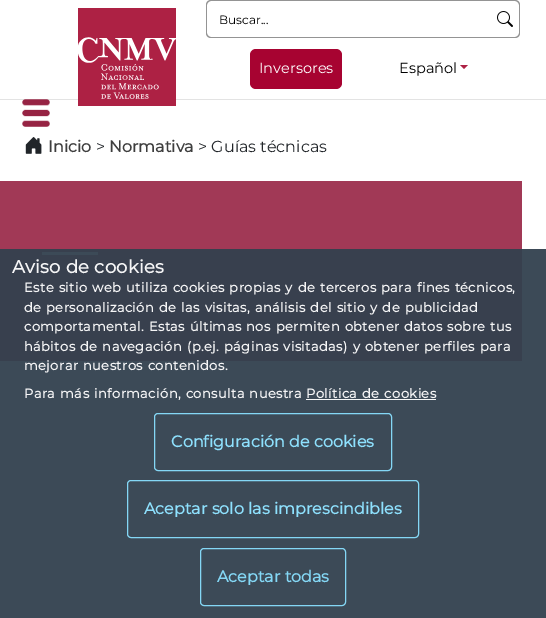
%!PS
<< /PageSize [546 618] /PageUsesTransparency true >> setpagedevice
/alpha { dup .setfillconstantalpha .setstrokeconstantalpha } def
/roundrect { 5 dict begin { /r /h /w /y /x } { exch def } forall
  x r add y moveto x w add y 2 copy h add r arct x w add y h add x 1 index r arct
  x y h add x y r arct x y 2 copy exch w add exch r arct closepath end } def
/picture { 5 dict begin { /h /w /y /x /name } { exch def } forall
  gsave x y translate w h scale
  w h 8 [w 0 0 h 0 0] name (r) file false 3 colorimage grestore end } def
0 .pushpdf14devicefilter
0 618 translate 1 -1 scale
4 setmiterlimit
1 setgray
0 0 546 618 rectfill
0.235 0.29 0.341 setrgbcolor
0 249 546 369 rectfill
0.89 setgray
0 99 546 1 rectfill
(img1.rgb) 78 8 98 98 picture
(img2.rgb) 22 99 28 28 picture
0.58 setgray
newpath 491 0 moveto 515 0 lineto 518 0 520 2 520 5 curveto 520 33 lineto 520 36 518 38 515 38 curveto 491 38 lineto closepath 491 1 moveto 515 1 lineto 517 1 519 3 519 5 curveto 519 33 lineto 519 35 517 37 515 37 curveto 491 37 lineto closepath eofill
newpath 211 0 moveto 492 0 lineto 492 38 lineto 211 38 lineto 208 38 206 36 206 33 curveto 206 5 lineto 206 2 208 0 211 0 curveto closepath 211 1 moveto 492 1 lineto 492 37 lineto 211 37 lineto 209 37 207 35 207 33 curveto 207 5 lineto 207 3 209 1 211 1 curveto closepath eofill
/Montserrat-Regular [12 0 0 -12 0 0] selectfont
0 setgray
219 24 moveto (Buscar...) show
(img3.rgb) 497 11 16 16 picture
0.655 0.012 0.192 setrgbcolor
250 49 92 40 6 roundrect fill
/Montserrat-Regular [14.5 0 0 -14.5 0 0] selectfont
1 setgray
259 73 moveto (Inversores) show
0 setgray
399 73 moveto (Español) show
0.678 0.129 0.267 setrgbcolor
newpath 460 65 moveto 468 65 lineto 464 69 lineto closepath fill
(img4.rgb) 25 137 17 17 picture
/Montserrat-Bold [16 0 0 -16 0 0] selectfont
0.243 setgray
48 152 moveto (Inicio) show
/Montserrat-Regular [16 0 0 -16 0 0] selectfont
0.129 0.145 0.161 setrgbcolor
96 152 moveto (>) show
/Montserrat-Bold [16 0 0 -16 0 0] selectfont
0.243 setgray
109 152 moveto (Normativa) show
/Montserrat-Regular [16 0 0 -16 0 0] selectfont
0.129 0.145 0.161 setrgbcolor
198 152 moveto (> Guías técnicas) show
0.631 0.224 0.337 setrgbcolor
0 181 522 68 rectfill
0.22 0.251 0.306 setrgbcolor
0 249 522 112 rectfill
0.235 0.29 0.341 setrgbcolor
42 252 56 3 rectfill
/Montserrat-Bold [18 0 0 -18 0 0] selectfont
0.961 0.961 0.965 setrgbcolor
12 273 moveto 0.25 0 (Aviso de cookies) ashow
/Montserrat-Bold [13 0 0 -13 0 0] selectfont
24 292 moveto 1 0 32 0.4 0 (Este sitio web utiliza cookies propias y de terceros para fines técnicos,) awidthshow
24 312 moveto 1 0 32 0.4 0 (de personalización de las visitas, análisis del sitio y de publicidad) awidthshow
24 331 moveto 1 0 32 0.4 0 (comportamental. Estas últimas nos permiten obtener datos sobre tus) awidthshow
24 351 moveto 1 0 32 0.4 0 (hábitos de navegación \(p.ej. páginas visitadas\) y obtener perfiles para) awidthshow
24 370 moveto 1 0 32 0.4 0 (mejorar nuestros contenidos.) awidthshow
24 398 moveto 1 0 32 0.4 0 (Para más información, consulta nuestra) awidthshow
306 398 moveto 1 0 32 0.4 0 (Política de cookies) awidthshow
0.95 alpha
1 setgray
306 399 130 1 rectfill
0.533 0.875 0.996 setrgbcolor
154.5 413.5 237 57 3.5 roundrect stroke
/Montserrat-Bold [16 0 0 -16 0 0] selectfont
1 alpha
0.557 0.882 0.996 setrgbcolor
171 447 moveto (Configuración de cookies) show
0.95 alpha
0.533 0.875 0.996 setrgbcolor
127.5 480.5 291 57 3.5 roundrect stroke
1 alpha
0.557 0.882 0.996 setrgbcolor
144 514 moveto (Aceptar solo las imprescindibles) show
0.95 alpha
0.533 0.875 0.996 setrgbcolor
200.5 548.5 145 57 3.5 roundrect stroke
1 alpha
0.518 0.847 0.965 setrgbcolor
217 582 moveto (Aceptar todas) show
.poppdf14devicefilter showpage
